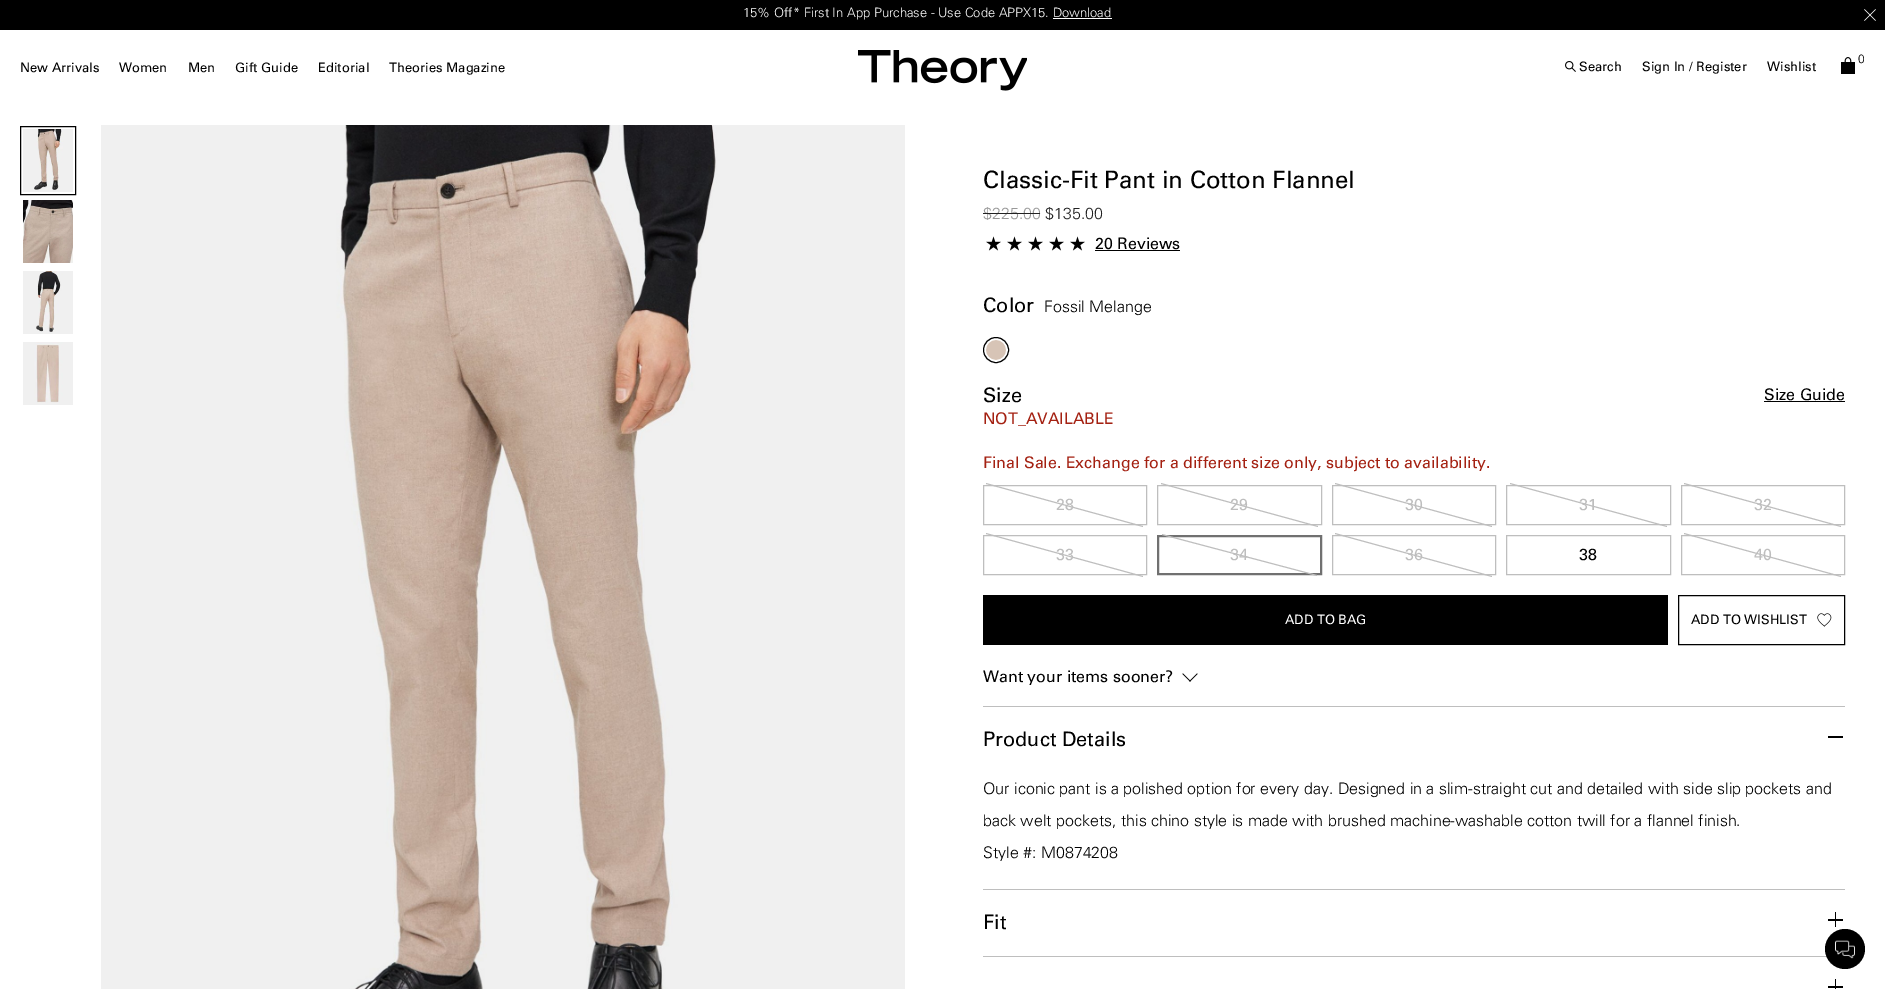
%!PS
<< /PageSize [1885 989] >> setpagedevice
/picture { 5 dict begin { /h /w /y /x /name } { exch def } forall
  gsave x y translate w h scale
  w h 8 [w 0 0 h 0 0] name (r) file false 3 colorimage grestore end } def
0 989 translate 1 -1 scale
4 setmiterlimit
1 setgray
0 0 1885 989 rectfill
0 setgray
0 0 1885 30 rectfill
/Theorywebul-Light [13 0 0 -13 0 0] selectfont
1 setgray
743 17 moveto (15% Off* First In App Purchase - Use Code APPX15. Download) show
1053 18 59 1 rectfill
(img1.rgb) 1864 9 12 12 picture
/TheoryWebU-Regular [13 0 0 -13 0 0] selectfont
0 setgray
20 72 moveto (New Arrivals) show
119 72 moveto (Women) show
188 72 moveto (Men) show
235 72 moveto (Gift Guide) show
318 72 moveto (Editorial) show
389 72 moveto (Theories Magazine) show
(img2.rgb) 858 50 169 41 picture
(img3.rgb) 1841 57 14 17 picture
/Theorywebul-Light [12 0 0 -12 0 0] selectfont
1858 63 moveto (0) show
(img4.rgb) 1565 61 11 11 picture
/TheoryWebU-Regular [13 0 0 -13 0 0] selectfont
1579 71 moveto (Search) show
1642 71 moveto (Sign In / Register) show
1767 71 moveto (Wishlist) show
20.5 126.5 55 68 rectstroke
(img5.rgb) 23 129 50 63 picture
(img6.rgb) 23 200 50 63 picture
(img7.rgb) 23 271 50 63 picture
(img8.rgb) 23 342 50 63 picture
(img9.rgb) 101 125 804 864 picture
/TheoryWebU-Regular [24 0 0 -24 0 0] selectfont
983 188 moveto (Classic-Fit Pant in Cotton Flannel) show
/Theorywebul-Light [16 0 0 -16 0 0] selectfont
0.6 setgray
983 219 moveto ($225.00) show
0.133 setgray
983 213 57 1 rectfill
1045 219 moveto ($135.00) show
(img10.rgb) 986 236 15 15 picture
(img10.rgb) 1007 236 15 15 picture
(img10.rgb) 1028 236 15 15 picture
(img10.rgb) 1049 236 15 15 picture
(img10.rgb) 1070 236 15 15 picture
/TheoryWebU-Regular [16 0 0 -16 0 0] selectfont
0 setgray
1095 249 moveto (20 Reviews) show
1095 250 85 1 rectfill
/TheoryWebU-Regular [20 0 0 -20 0 0] selectfont
983 312 moveto (Color) show
/Theorywebul-Light [16 0 0 -16 0 0] selectfont
1044 312 moveto (Fossil Melange) show
(img11.rgb) 986 340 20 20 picture
newpath 996 350 12.5 0 360 arc closepath stroke
/TheoryWebU-Regular [20 0 0 -20 0 0] selectfont
983 402 moveto (Size) show
/TheoryWebU-Regular [16 0 0 -16 0 0] selectfont
1764 400 moveto (Size Guide) show
1764 401 81 1 rectfill
0.643 0.129 0.071 setrgbcolor
983 424 moveto (NOT_AVAILABLE) show
983 468 moveto (Final Sale. Exchange for a different size only, subject to availability.) show
0.745 setgray
983.5 485.5 163 39 rectstroke
newpath 986 483 moveto 1143 526 lineto 1143 527 lineto 986 484 lineto closepath fill
1056 510 moveto (28) show
1157.5 485.5 164 39 rectstroke
newpath 1161 483 moveto 1318 526 lineto 1318 527 lineto 1161 484 lineto closepath fill
1230 510 moveto (29) show
1332.5 485.5 163 39 rectstroke
newpath 1335 483 moveto 1492 526 lineto 1492 527 lineto 1335 484 lineto closepath fill
1405 510 moveto (30) show
1506.5 485.5 164 39 rectstroke
newpath 1510 483 moveto 1667 526 lineto 1667 527 lineto 1510 484 lineto closepath fill
1579 510 moveto (31) show
1681.5 485.5 163 39 rectstroke
newpath 1684 483 moveto 1841 526 lineto 1841 527 lineto 1684 484 lineto closepath fill
1754 510 moveto (32) show
983.5 535.5 163 39 rectstroke
newpath 986 533 moveto 1143 576 lineto 1143 577 lineto 986 534 lineto closepath fill
1056 560 moveto (33) show
0.439 setgray
2 setlinewidth
1158 536 163 38 rectstroke
0.745 setgray
newpath 1162 534 moveto 1317 575 lineto 1317 576 lineto 1162 535 lineto closepath fill
1230 560 moveto (34) show
1 setlinewidth
1332.5 535.5 163 39 rectstroke
newpath 1335 533 moveto 1492 576 lineto 1492 577 lineto 1335 534 lineto closepath fill
1405 560 moveto (36) show
1506.5 535.5 164 39 rectstroke
0 setgray
1579 560 moveto (38) show
0.745 setgray
1681.5 535.5 163 39 rectstroke
newpath 1684 533 moveto 1841 576 lineto 1841 577 lineto 1684 534 lineto closepath fill
1754 560 moveto (40) show
0 setgray
983 595 685 50 rectfill
/TheoryWebU-Regular [13 0 0 -13 0 0] selectfont
1 setgray
1285 624 moveto (ADD TO BAG) show
0 setgray
1678.5 595.5 166 49 rectstroke
1691 624 moveto (ADD TO WISHLIST) show
(img12.rgb) 1817 613 15 14 picture
/TheoryWebU-Regular [16 0 0 -16 0 0] selectfont
983 682 moveto (Want your items sooner?) show
(img13.rgb) 1182 673 16 9 picture
0.745 setgray
983 706 862 1 rectfill
/TheoryWebU-Regular [20 0 0 -20 0 0] selectfont
0 setgray
983 746 moveto (Product Details) show
1828 736 15 2 rectfill
/Theorywebul-Light [16 0 0 -16 0 0] selectfont
983 794 moveto (Our iconic pant is a polished option for every day. Designed in a slim-straight cut and detailed with side slip pockets and) show
983 826 moveto (back welt pockets, this chino style is made with brushed machine-washable cotton twill for a flannel finish.) show
983 858 moveto (Style #: M0874208) show
0.745 setgray
983 889 862 1 rectfill
/TheoryWebU-Regular [20 0 0 -20 0 0] selectfont
0 setgray
983 929 moveto (Fit) show
1835 912 1 15 rectfill
1828 919 15 2 rectfill
0.745 setgray
983 956 844 1 rectfill
0 setgray
1835 979 1 10 rectfill
1828 986 15 2 rectfill
newpath 1845 949 20 0 360 arc closepath fill
(img14.rgb) 1835 940 20 19 picture
showpage
